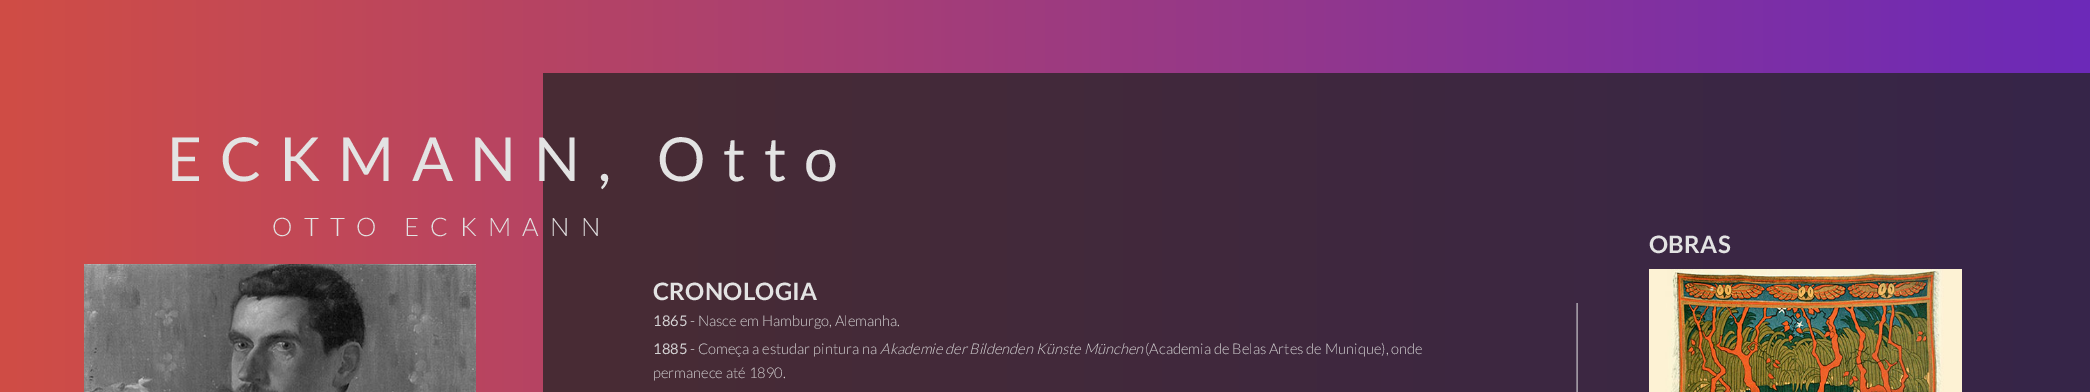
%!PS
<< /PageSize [2090 392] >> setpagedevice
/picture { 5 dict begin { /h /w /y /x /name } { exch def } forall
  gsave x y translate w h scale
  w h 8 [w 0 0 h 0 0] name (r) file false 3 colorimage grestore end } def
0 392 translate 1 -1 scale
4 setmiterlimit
1 setgray
0 0 2090 392 rectfill
gsave newpath 0 0 moveto 2090 0 lineto 2090 392 lineto 0 392 lineto closepath clip newpath
<< /ShadingType 2 /ColorSpace /DeviceRGB /Coords [0 196 2090 196] /Extend [true true] /Function << /FunctionType 2 /Domain [0 1] /C0 [0.816 0.302 0.271] /C1 [0.424 0.161 0.725] /N 1 >> >> shfill grestore
gsave newpath 543 73 moveto 2090 73 lineto 2090 392 lineto 543 392 lineto closepath clip newpath
<< /ShadingType 2 /ColorSpace /DeviceRGB /Coords [0 196 2090 196] /Extend [true true] /Function << /FunctionType 2 /Domain [0 1] /C0 [0.31 0.18 0.173] /C1 [0.212 0.145 0.286] /N 1 >> >> shfill grestore
/Lato-Regular [60.75 0 0 -60.75 0 0] selectfont
0.89 setgray
167 181 moveto 17.6 0 (ECKMANN, Otto) ashow
/Lato-Light [25.6 0 0 -25.6 0 0] selectfont
272 236 moveto 11.25 0 (OTTO ECKMANN) ashow
/Lato-Bold [24 0 0 -24 0 0] selectfont
1649 253 moveto 0.25 0 (OBRAS) ashow
(img1.rgb) 1649 269 313 123 picture
(img2.rgb) 84 264 392 128 picture
653 300 moveto 0.25 0 (CRONOLOGIA) ashow
/Lato-Regular [14.75 0 0 -14.75 0 0] selectfont
0.827 0.82 0.824 setrgbcolor
653 326 moveto (1865) show
/Lato-Light [14.75 0 0 -14.75 0 0] selectfont
690 326 moveto (- Nasce em Hamburgo, Alemanha.) show
/Lato-Regular [14.75 0 0 -14.75 0 0] selectfont
653 354 moveto (1885) show
/Lato-Light [14.75 0 0 -14.75 0 0] selectfont
690 354 moveto (- Começa a estudar pintura na) show
/Lato-LightItalic [14.75 0 0 -14.75 0 0] selectfont
880 354 moveto (Akademie der Bildenden Künste München) show
/Lato-Light [14.75 0 0 -14.75 0 0] selectfont
1145 354 moveto (\(Academia de Belas Artes de Munique\), onde) show
653 378 moveto (permanece até 1890.) show
0.761 0.745 0.765 setrgbcolor
newpath 1577 303 moveto 1577 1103 lineto stroke
showpage
